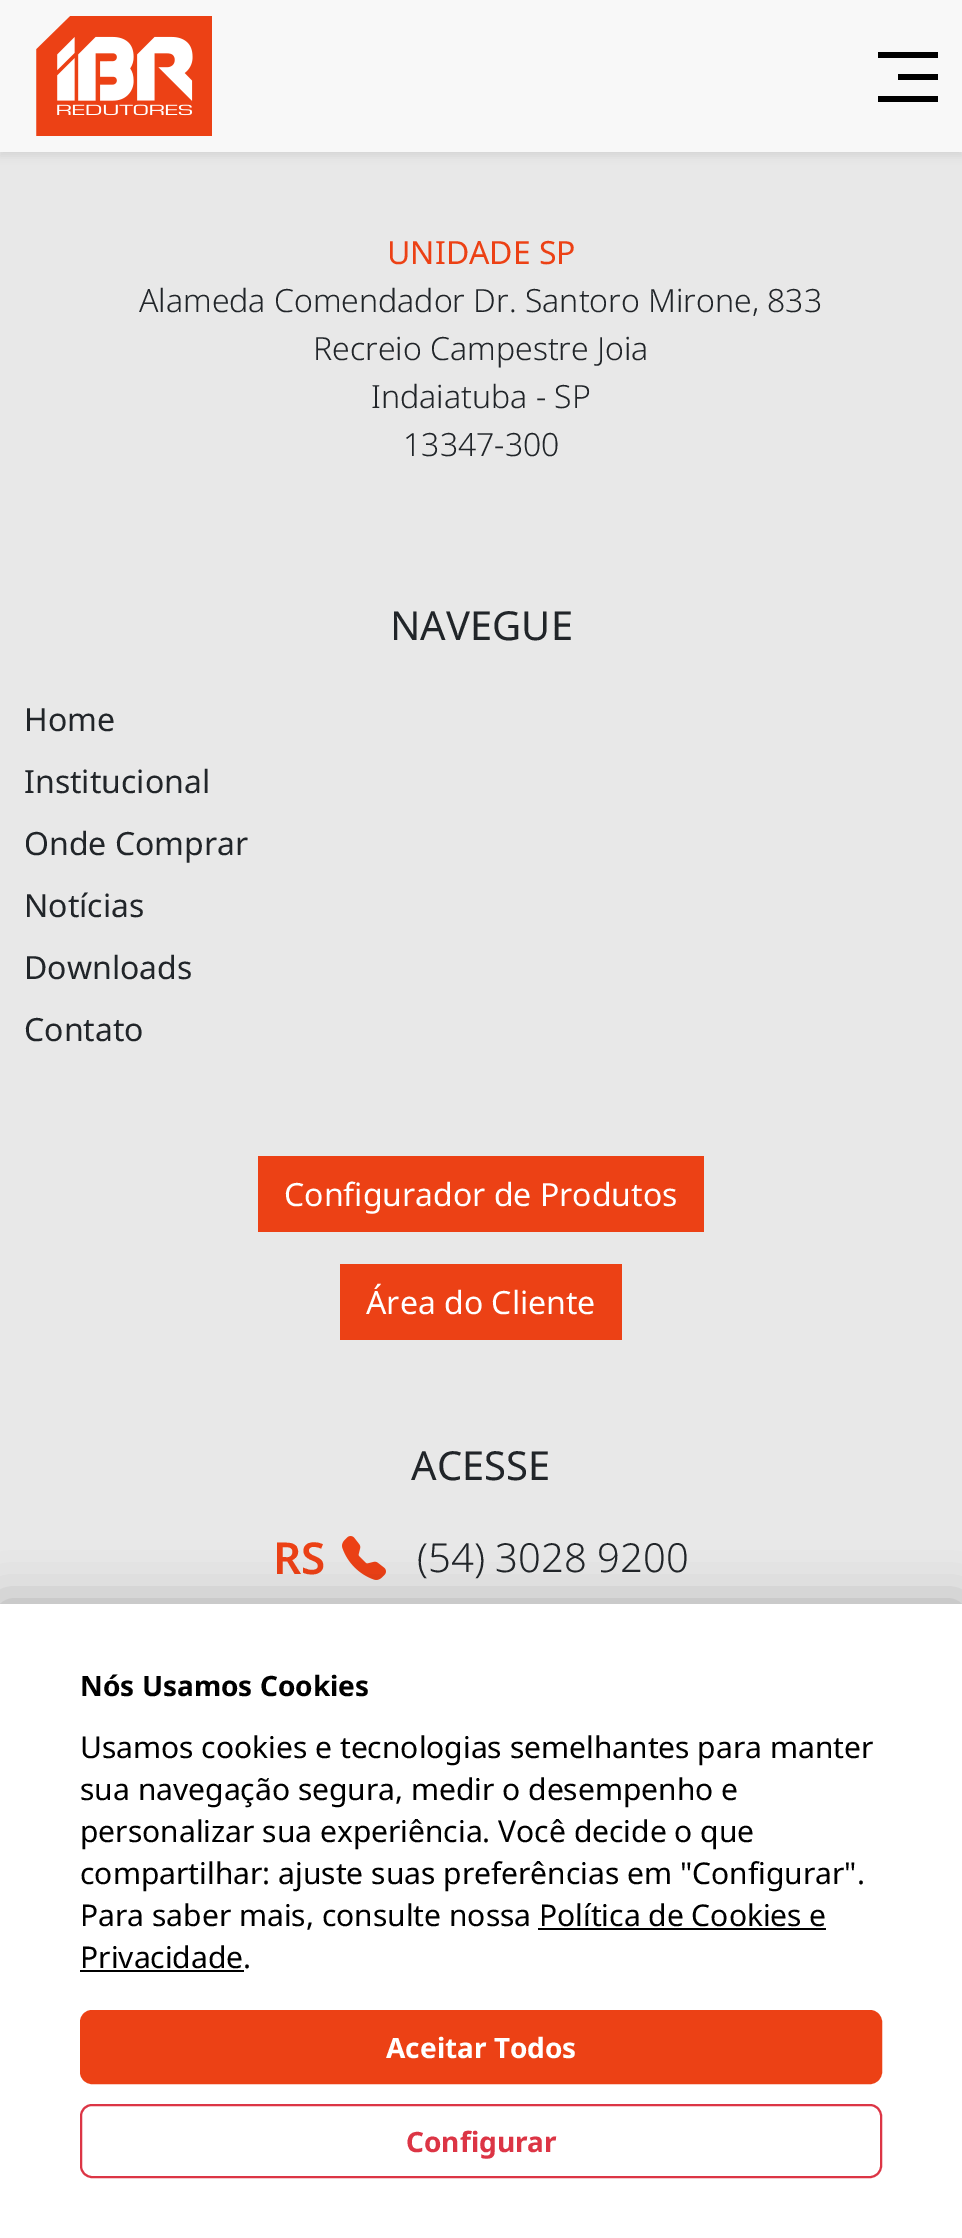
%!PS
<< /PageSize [962 2238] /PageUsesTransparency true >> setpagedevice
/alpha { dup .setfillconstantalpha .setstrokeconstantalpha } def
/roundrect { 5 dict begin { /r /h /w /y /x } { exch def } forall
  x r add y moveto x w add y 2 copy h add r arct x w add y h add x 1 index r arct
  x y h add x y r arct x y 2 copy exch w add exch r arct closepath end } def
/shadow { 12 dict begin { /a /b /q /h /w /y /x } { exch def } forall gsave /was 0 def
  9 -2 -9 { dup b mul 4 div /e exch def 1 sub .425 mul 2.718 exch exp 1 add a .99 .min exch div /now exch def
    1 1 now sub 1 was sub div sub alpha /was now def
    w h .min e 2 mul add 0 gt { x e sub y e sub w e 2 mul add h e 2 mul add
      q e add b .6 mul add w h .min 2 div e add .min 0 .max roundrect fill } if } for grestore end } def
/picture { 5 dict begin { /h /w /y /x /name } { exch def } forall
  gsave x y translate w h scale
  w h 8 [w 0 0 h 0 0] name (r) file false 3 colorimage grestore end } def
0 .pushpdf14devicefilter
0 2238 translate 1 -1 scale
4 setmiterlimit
0.91 setgray
0 0 962 2238 rectfill
0 setgray
0 4 962 152 0 4 0.07 shadow
0.973 setgray
0 0 962 152 rectfill
(img1.rgb) 36 16 176 120 picture
0 setgray
878 52 60 6 rectfill
898 74 40 6 rectfill
878 96 60 6 rectfill
/NotoSans-Regular [32 0 0 -32 0 0] selectfont
0.925 0.255 0.082 setrgbcolor
387 264 moveto (UNIDADE SP) show
/NotoSans-Light [32 0 0 -32 0 0] selectfont
0.129 0.145 0.161 setrgbcolor
139 312 moveto (Alameda Comendador Dr. Santoro Mirone, 833) show
313 360 moveto (Recreio Campestre Joia) show
371 408 moveto (Indaiatuba - SP) show
403 456 moveto (13347-300) show
/NotoSans-Regular [40 0 0 -40 0 0] selectfont
390 640 moveto (NAVEGUE) show
/NotoSans-Regular [32 0 0 -32 0 0] selectfont
24 731 moveto (Home) show
24 793 moveto (Institucional) show
24 855 moveto (Onde Comprar) show
24 917 moveto (Notícias) show
24 979 moveto (Downloads) show
24 1041 moveto (Contato) show
0.925 0.255 0.082 setrgbcolor
258 1156 446 76 rectfill
1 setgray
284 1206 moveto (Configurador de Produtos) show
0.925 0.255 0.082 setrgbcolor
340 1264 282 76 rectfill
1 setgray
366 1314 moveto (Área do Cliente) show
/NotoSans-Regular [40 0 0 -40 0 0] selectfont
0.129 0.145 0.161 setrgbcolor
411 1480 moveto (ACESSE) show
/NotoSans-SemiBold [44 0 0 -44 0 0] selectfont
0.925 0.255 0.082 setrgbcolor
273 1574 moveto (RS) show
(img2.rgb) 342 1536 44 44 picture
/NotoSans-Light [40 0 0 -40 0 0] selectfont
0.129 0.145 0.161 setrgbcolor
417 1572 moveto (\(54\) 3028 9200) show
0 setgray
0 1604 962 634 0 24 0.25 shadow
1 setgray
0 1604 962 634 rectfill
/NotoSans-Bold [28 0 0 -28 0 0] selectfont
0 setgray
80 1696 moveto (Nós Usamos Cookies) show
/NotoSans-Regular [30 0 0 -30 0 0] selectfont
80 1758 moveto (Usamos cookies e tecnologias semelhantes para manter) show
80 1800 moveto (sua navegação segura, medir o desempenho e) show
80 1842 moveto (personalizar sua experiência. Você decide o que) show
80 1884 moveto (compartilhar: ajuste suas preferências em "Configurar".) show
80 1926 moveto (Para saber mais, consulte nossa Política de Cookies e) show
80 1968 moveto (Privacidade.) show
538 1928 288 2 rectfill
80 1970 164 2 rectfill
0.925 0.255 0.082 setrgbcolor
81 2011 800 72 11 roundrect gsave fill grestore
2 setlinewidth
stroke
/NotoSans-Bold [28 0 0 -28 0 0] selectfont
1 setgray
386 2058 moveto (Aceitar Todos) show
0.863 0.208 0.271 setrgbcolor
81 2105 800 72 11 roundrect stroke
406 2152 moveto (Configurar) show
.poppdf14devicefilter showpage
